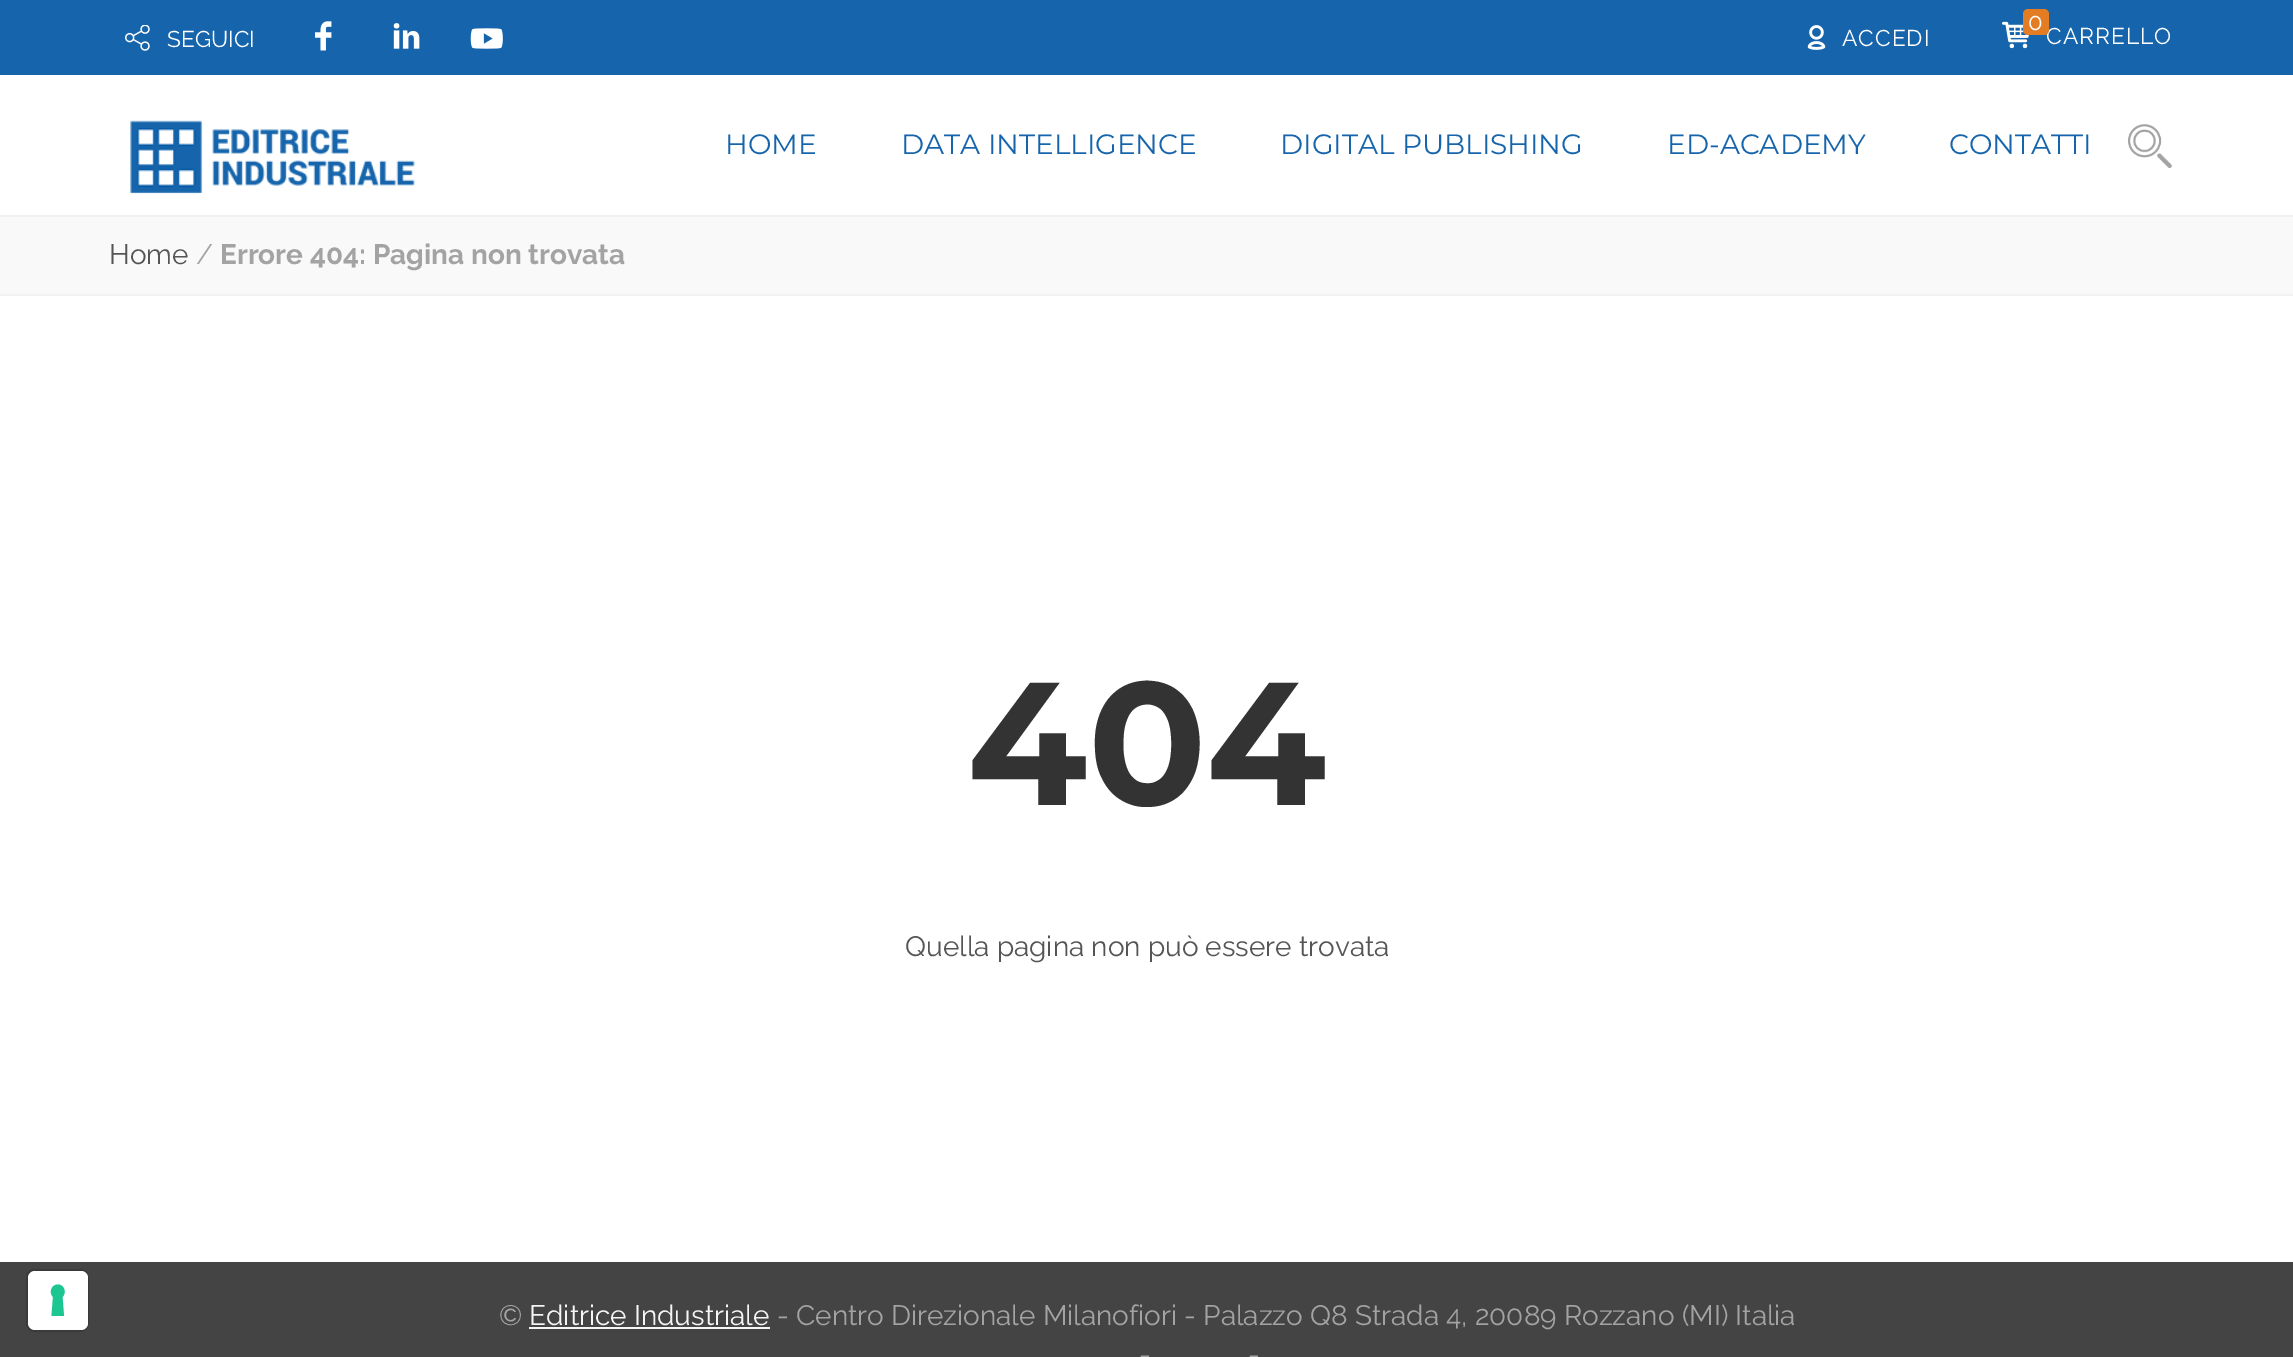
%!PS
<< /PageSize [2293 1357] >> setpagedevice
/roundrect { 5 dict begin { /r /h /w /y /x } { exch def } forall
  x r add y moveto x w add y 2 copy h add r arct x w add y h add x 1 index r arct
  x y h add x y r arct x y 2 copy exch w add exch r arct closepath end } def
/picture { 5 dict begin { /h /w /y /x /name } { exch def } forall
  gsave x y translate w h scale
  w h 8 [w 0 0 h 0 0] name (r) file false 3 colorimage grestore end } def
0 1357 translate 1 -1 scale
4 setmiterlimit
1 setgray
0 0 2293 1357 rectfill
0.267 setgray
0 1262 2293 95 rectfill
0.227 setgray
2 setlinewidth
27 1270 61 61 8 roundrect stroke
1 setgray
28 1271 60 59 7 roundrect fill
0.11 0.776 0.569 setrgbcolor
newpath 58 1284.5 moveto 64 1284.5 67 1292.5 62.5 1297 curveto 64 1316 lineto 51.5 1316 lineto 53 1297 lineto 48.5 1292.5 51.5 1284.5 58 1284.5 curveto closepath eofill
0.086 0.396 0.675 setrgbcolor
0 0 2293 75 rectfill
(img1.rgb) 125 25 25 26 picture
/Raleway-Regular [22.75 0 0 -22.75 0 0] selectfont
1 setgray
167 47 moveto (SEGUICI) show
(img2.rgb) 315 21 17 30 picture
(img3.rgb) 393 23 27 26 picture
(img4.rgb) 470 28 33 21 picture
(img5.rgb) 1807 25 19 25 picture
1842 46 moveto 1 0 (ACCEDI) ashow
(img6.rgb) 2002 21 27 28 picture
2046 44 moveto 1 0 (CARRELLO) ashow
0.89 0.486 0.137 setrgbcolor
2023 9 26 26 5 roundrect fill
/Raleway-Regular [24 0 0 -24 0 0] selectfont
1 setgray
2028 30 moveto (0) show
0.945 setgray
0 215 2293 2 rectfill
(img7.rgb) 130 120 285 74 picture
/Montserrat-Regular [28 0 0 -28 0 0] selectfont
0.086 0.396 0.675 setrgbcolor
725 154 moveto (HOME) show
901 154 moveto (DATA INTELLIGENCE) show
1280 154 moveto (DIGITAL PUBLISHING) show
1667 154 moveto (ED-ACADEMY) show
1949 154 moveto (CONTATTI) show
(img8.rgb) 2128 124 44 44 picture
0.976 setgray
0 217 2293 77 rectfill
0.945 setgray
0 294 2293 2 rectfill
/Raleway-Regular [28 0 0 -28 0 0] selectfont
0.333 setgray
109 264 moveto (Home) show
0.639 setgray
196 264 moveto (/) show
/Raleway-Bold [28 0 0 -28 0 0] selectfont
220 264 moveto (Errore 404: Pagina non trovata) show
/Montserrat-Bold [175 0 0 -175 0 0] selectfont
0.2 setgray
967 805 moveto (404) show
/Raleway-Regular [28 0 0 -28 0 0] selectfont
0.333 setgray
905 956 moveto (Quella pagina non può essere trovata) show
0.639 setgray
499 1325 moveto (©) show
0.961 setgray
529 1325 moveto (Editrice Industriale) show
529 1327 241 2 rectfill
0.639 setgray
777 1325 moveto (- Centro Direzionale Milanofiori - Palazzo Q8 Strada 4, 20089 Rozzano \(MI\) Italia) show
1139 1364 moveto (-) show
1248 1364 moveto (-) show
showpage
